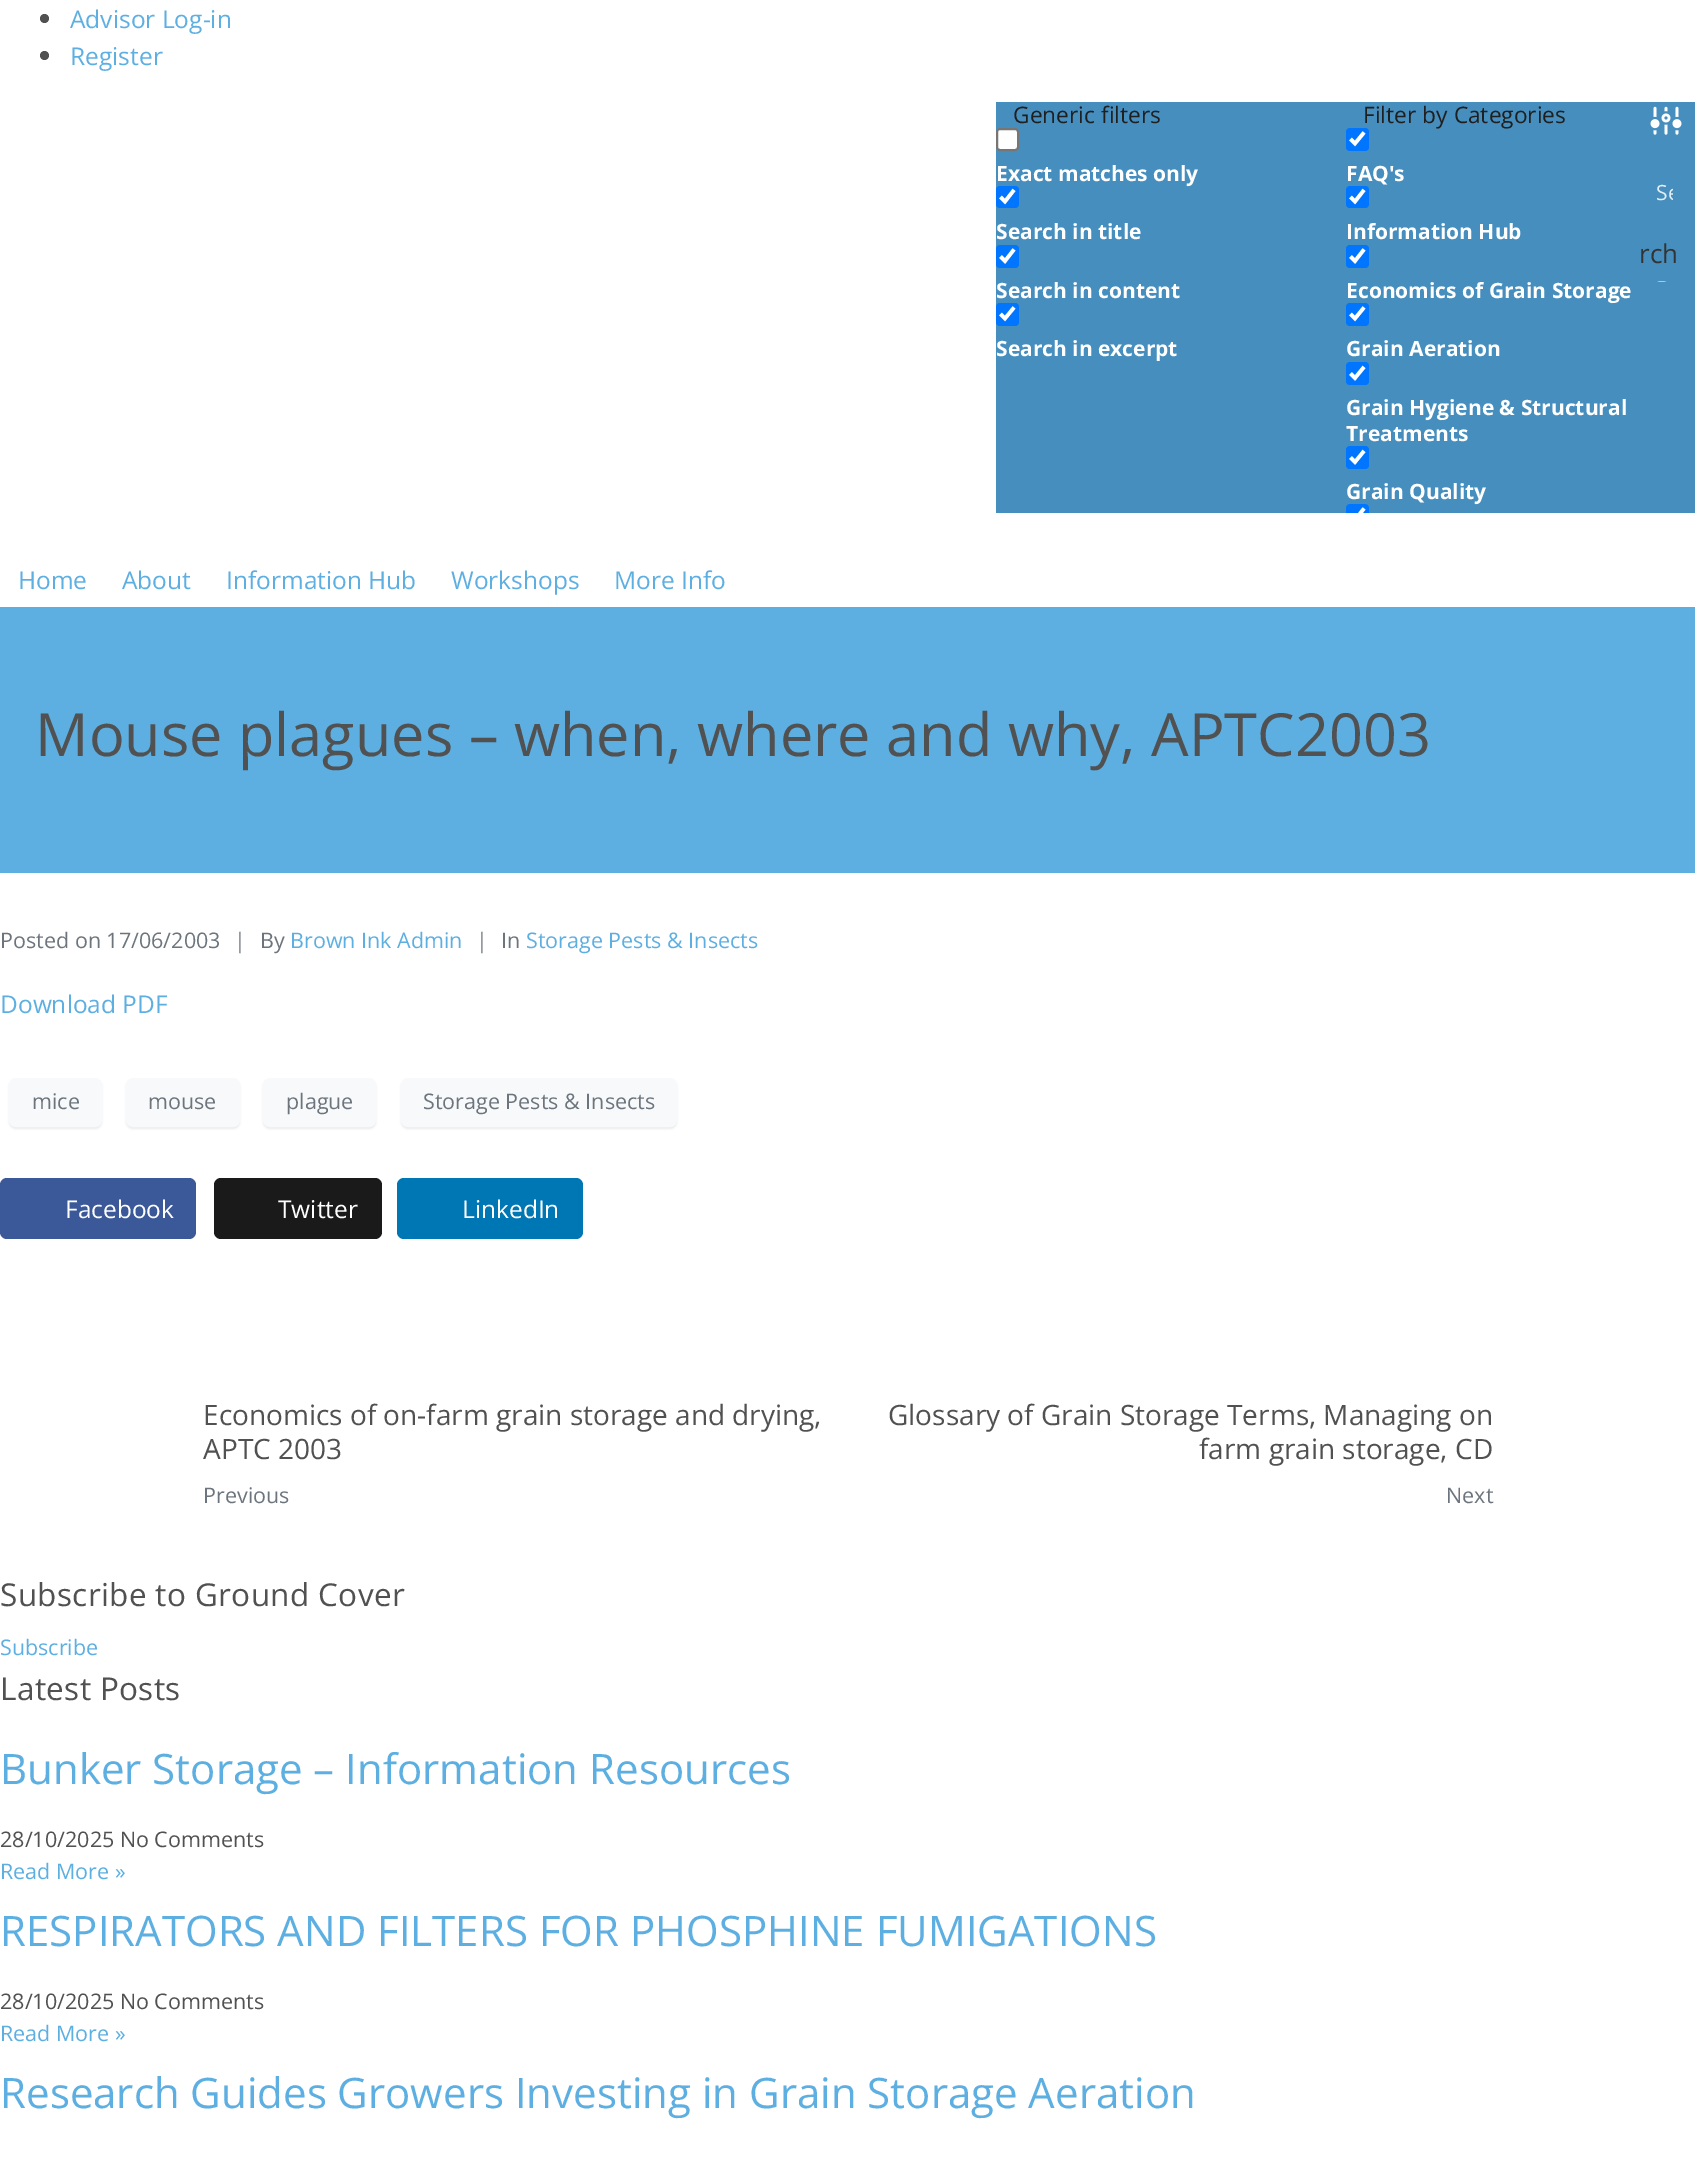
%!PS
<< /PageSize [1695 2165] /PageUsesTransparency true >> setpagedevice
/alpha { dup .setfillconstantalpha .setstrokeconstantalpha } def
/roundrect { 5 dict begin { /r /h /w /y /x } { exch def } forall
  x r add y moveto x w add y 2 copy h add r arct x w add y h add x 1 index r arct
  x y h add x y r arct x y 2 copy exch w add exch r arct closepath end } def
/shadow { 12 dict begin { /a /b /q /h /w /y /x } { exch def } forall gsave /was 0 def
  9 -2 -9 { dup b mul 4 div /e exch def 1 sub .425 mul 2.718 exch exp 1 add a .99 .min exch div /now exch def
    1 1 now sub 1 was sub div sub alpha /was now def
    w h .min e 2 mul add 0 gt { x e sub y e sub w e 2 mul add h e 2 mul add
      q e add b .6 mul add w h .min 2 div e add .min 0 .max roundrect fill } if } for grestore end } def
/picture { 5 dict begin { /h /w /y /x /name } { exch def } forall
  gsave x y translate w h scale
  w h 8 [w 0 0 h 0 0] name (r) file false 3 colorimage grestore end } def
0 .pushpdf14devicefilter
0 2165 translate 1 -1 scale
4 setmiterlimit
1 setgray
0 0 1695 2165 rectfill
0.318 setgray
newpath 44.5 18.5 4.5 0 360 arc closepath fill
/OpenSans-Regular [24.5 0 0 -24.5 0 0] selectfont
0.365 0.686 0.886 setrgbcolor
70 28 moveto (Advisor Log-in) show
0.318 setgray
newpath 44.5 55.5 4.5 0 360 arc closepath fill
0.365 0.686 0.886 setrgbcolor
70 65 moveto (Register) show
0.275 0.557 0.745 setrgbcolor
996 102 699 411 rectfill
/OpenSans-Regular [22.75 0 0 -22.75 0 0] selectfont
0.122 setgray
1013 123 moveto (Generic filters) show
1 setgray
997 129 21 21 3 roundrect gsave fill grestore
0.463 setgray
2 setlinewidth
stroke
/OpenSans-Bold [21 0 0 -21 0 0] selectfont
1 setgray
996 181 moveto (Exact matches only) show
0 0.459 1 setrgbcolor
996 186 23 22 4 roundrect fill
1 setgray
3.6 setlinewidth
newpath 1000.5 197 moveto 1005 201.5 lineto 1014 190 lineto stroke
996 239 moveto (Search in title) show
0 0.459 1 setrgbcolor
996 245 23 23 4 roundrect fill
1 setgray
newpath 1000.5 256.5 moveto 1005 261 lineto 1014 249.5 lineto stroke
996 298 moveto (Search in content) show
0 0.459 1 setrgbcolor
996 303 23 23 4 roundrect fill
1 setgray
newpath 1000.5 314 moveto 1005 318.5 lineto 1014 307.5 lineto stroke
996 356 moveto (Search in excerpt) show
/OpenSans-Regular [22.75 0 0 -22.75 0 0] selectfont
0.122 setgray
1363 123 moveto (Filter by Categories) show
0 0.459 1 setrgbcolor
1346 128 23 23 4 roundrect fill
1 setgray
newpath 1350.5 139 moveto 1355 143.5 lineto 1364 132.5 lineto stroke
/OpenSans-Bold [21 0 0 -21 0 0] selectfont
1346 181 moveto (FAQ's) show
0 0.459 1 setrgbcolor
1346 186 23 22 4 roundrect fill
1 setgray
newpath 1350.5 197 moveto 1355 201.5 lineto 1364 190 lineto stroke
1346 239 moveto (Information Hub) show
0 0.459 1 setrgbcolor
1346 245 23 23 4 roundrect fill
1 setgray
newpath 1350.5 256.5 moveto 1355 261 lineto 1364 249.5 lineto stroke
1346 298 moveto (Economics of Grain Storage) show
0 0.459 1 setrgbcolor
1346 303 23 23 4 roundrect fill
1 setgray
newpath 1350.5 314 moveto 1355 318.5 lineto 1364 307.5 lineto stroke
1346 356 moveto (Grain Aeration) show
0 0.459 1 setrgbcolor
1346 362 23 23 4 roundrect fill
1 setgray
newpath 1350.5 373.5 moveto 1355 378 lineto 1364 367 lineto stroke
1346 415 moveto (Grain Hygiene & Structural) show
1346 441 moveto (Treatments) show
0 0.459 1 setrgbcolor
1346 446 23 23 4 roundrect fill
1 setgray
newpath 1350.5 457.5 moveto 1355 462 lineto 1364 451 lineto stroke
1346 499 moveto (Grain Quality) show
0 0.459 1 setrgbcolor
newpath 1350 504 moveto 1365 504 lineto 1367 504 1369 506 1369 508 curveto 1369 513 lineto 1346 513 lineto 1346 508 lineto 1346 506 1348 504 1350 504 curveto closepath fill
gsave
1346 128 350 385 rectclip
1 setgray
newpath 1350.5 515.5 moveto 1355 520 lineto 1364 508.5 lineto stroke
grestore
(img1.rgb) 1650 106 32 29 picture
gsave
1656 179 17 29 rectclip
/OpenSans-Regular [21 0 0 -21 0 0] selectfont
0.89 0.933 0.961 setrgbcolor
1656 200 moveto (Se) show
grestore
/OpenSans-Regular [26 0 0 -26 0 0] selectfont
0.2 setgray
1639 263 moveto (rch) show
gsave
1636 102 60 180 rectclip
1 setgray
7 setlinewidth
newpath 1678.5 324 moveto 1674.5 328.5 1668.5 331 1662.5 331 curveto 1635.5 331 1631.5 291 1658 285.5 curveto 1665.5 284 1673.5 286.5 1678.5 292 curveto stroke
grestore
/OpenSans-Regular [24.5 0 0 -24.5 0 0] selectfont
0.365 0.686 0.886 setrgbcolor
18 589 moveto (Home) show
122 589 moveto (About) show
226 589 moveto (Information Hub) show
451 589 moveto (Workshops) show
614 589 moveto (More Info) show
0 607 1695 266 rectfill
/OpenSans-Regular [59.5 0 0 -59.5 0 0] selectfont
0.318 setgray
35 756 moveto (Mouse plagues – when, where and why, APTC2003) show
/OpenSans-Regular [21.5 0 0 -21.5 0 0] selectfont
0.424 0.459 0.49 setrgbcolor
0 948 moveto (Posted on 17/06/2003) show
234 948 moveto (|) show
260 948 moveto (By) show
0.365 0.686 0.886 setrgbcolor
290 948 moveto (Brown Ink Admin) show
0.424 0.459 0.49 setrgbcolor
476 948 moveto (|) show
501 948 moveto (In) show
0.365 0.686 0.886 setrgbcolor
526 948 moveto (Storage Pests & Insects) show
/OpenSans-Regular [24.5 0 0 -24.5 0 0] selectfont
0 1013 moveto (Download PDF) show
0 setgray
9 1080 93 49 7 1 0.07 shadow
0.973 0.976 0.98 setrgbcolor
10 1079 91 47 6 roundrect gsave fill grestore
2 setlinewidth
stroke
/OpenSans-Regular [21.5 0 0 -21.5 0 0] selectfont
0.424 0.459 0.49 setrgbcolor
32 1109 moveto (mice) show
0 setgray
126 1080 114 49 7 1 0.07 shadow
0.973 0.976 0.98 setrgbcolor
127 1079 112 47 6 roundrect gsave fill grestore
stroke
0.424 0.459 0.49 setrgbcolor
148 1109 moveto (mouse) show
0 setgray
263 1080 113 49 7 1 0.07 shadow
0.973 0.976 0.98 setrgbcolor
264 1079 111 47 6 roundrect gsave fill grestore
stroke
0.424 0.459 0.49 setrgbcolor
286 1109 moveto (plague) show
0 setgray
401 1080 276 49 7 1 0.07 shadow
0.973 0.976 0.98 setrgbcolor
402 1079 274 47 6 roundrect gsave fill grestore
stroke
0.424 0.459 0.49 setrgbcolor
423 1109 moveto (Storage Pests & Insects) show
0.231 0.349 0.596 setrgbcolor
0 1178 196 61 7 roundrect fill
/OpenSans-Regular [24.5 0 0 -24.5 0 0] selectfont
1 setgray
65 1218 moveto (Facebook) show
0.102 setgray
214 1178 168 61 7 roundrect fill
1 setgray
278 1218 moveto (Twitter) show
0 0.467 0.71 setrgbcolor
397 1178 186 61 7 roundrect fill
1 setgray
462 1218 moveto (LinkedIn) show
/OpenSans-Regular [28 0 0 -28 0 0] selectfont
0.318 setgray
203 1425 moveto (Economics of on-farm grain storage and drying,) show
203 1459 moveto (APTC 2003) show
/OpenSans-Regular [21.5 0 0 -21.5 0 0] selectfont
0.424 0.459 0.49 setrgbcolor
203 1503 moveto (Previous) show
/OpenSans-Regular [28 0 0 -28 0 0] selectfont
0.318 setgray
888 1425 moveto (Glossary of Grain Storage Terms, Managing on) show
1199 1459 moveto (farm grain storage, CD) show
/OpenSans-Regular [21.5 0 0 -21.5 0 0] selectfont
0.424 0.459 0.49 setrgbcolor
1446 1503 moveto (Next) show
/OpenSans-Regular [31.5 0 0 -31.5 0 0] selectfont
0.318 setgray
0 1606 moveto 0.35 0 (Subscribe to Ground Cover) ashow
/OpenSans-Regular [21.5 0 0 -21.5 0 0] selectfont
0.365 0.686 0.886 setrgbcolor
0 1655 moveto (Subscribe) show
/OpenSans-Regular [31.5 0 0 -31.5 0 0] selectfont
0.318 setgray
0 1700 moveto 0.35 0 (Latest Posts) ashow
/OpenSans-Regular [42 0 0 -42 0 0] selectfont
0.365 0.686 0.886 setrgbcolor
0 1784 moveto (Bunker Storage – Information Resources) show
/OpenSans-Regular [21.5 0 0 -21.5 0 0] selectfont
0.318 setgray
0 1847 moveto (28/10/2025 No Comments) show
0.365 0.686 0.886 setrgbcolor
0 1879 moveto (Read More ») show
/OpenSans-Regular [42 0 0 -42 0 0] selectfont
0 1946 moveto (RESPIRATORS AND FILTERS FOR PHOSPHINE FUMIGATIONS) show
/OpenSans-Regular [21.5 0 0 -21.5 0 0] selectfont
0.318 setgray
0 2009 moveto (28/10/2025 No Comments) show
0.365 0.686 0.886 setrgbcolor
0 2041 moveto (Read More ») show
/OpenSans-Regular [42 0 0 -42 0 0] selectfont
0 2108 moveto (Research Guides Growers Investing in Grain Storage Aeration) show
.poppdf14devicefilter showpage
